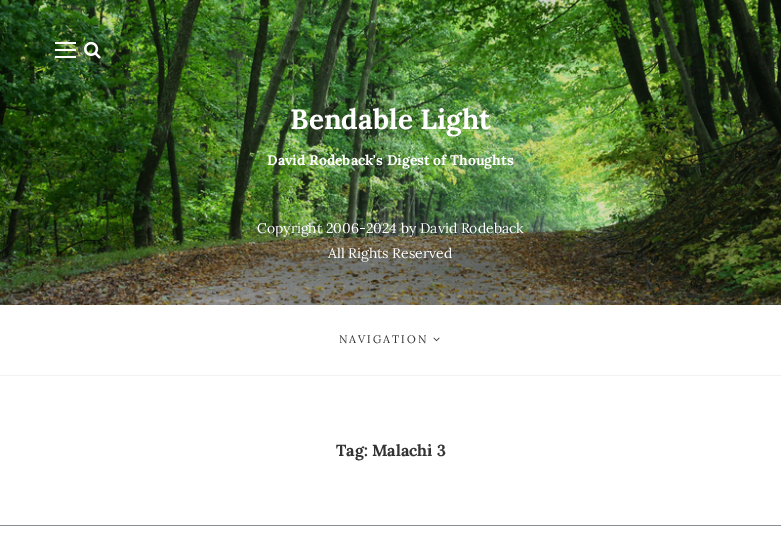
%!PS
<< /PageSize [781 533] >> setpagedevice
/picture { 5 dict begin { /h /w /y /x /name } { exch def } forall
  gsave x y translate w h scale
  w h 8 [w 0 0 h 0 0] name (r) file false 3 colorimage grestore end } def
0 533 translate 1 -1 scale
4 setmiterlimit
1 setgray
0 0 781 533 rectfill
(img1.rgb) 0 0 781 305 picture
55 49 21 2 rectfill
55 42 21 2 rectfill
55 56 21 2 rectfill
(img2.rgb) 84 41 17 18 picture
/Lora-Bold [28 0 0 -28 0 0] selectfont
290 129 moveto (Bendable Light) show
/Lora-Bold [14 0 0 -14 0 0] selectfont
267 165 moveto (David Rodeback's Digest of Thoughts) show
/Lora-Regular [14 0 0 -14 0 0] selectfont
257 233 moveto (Copyright 2006-2024 by David Rodeback) show
328 258 moveto (All Rights Reserved) show
0.949 setgray
0 375 781 1 rectfill
/Lora-Regular [11 0 0 -11 0 0] selectfont
0.2 setgray
339 343 moveto 2 0 (NAVIGATION) ashow
(img3.rgb) 433 337 7 5 picture
0.529 0.561 0.588 setrgbcolor
0 525 781 1 rectfill
/Lora-Bold [16 0 0 -16 0 0] selectfont
0.2 setgray
336 456 moveto (Tag: Malachi 3) show
showpage
